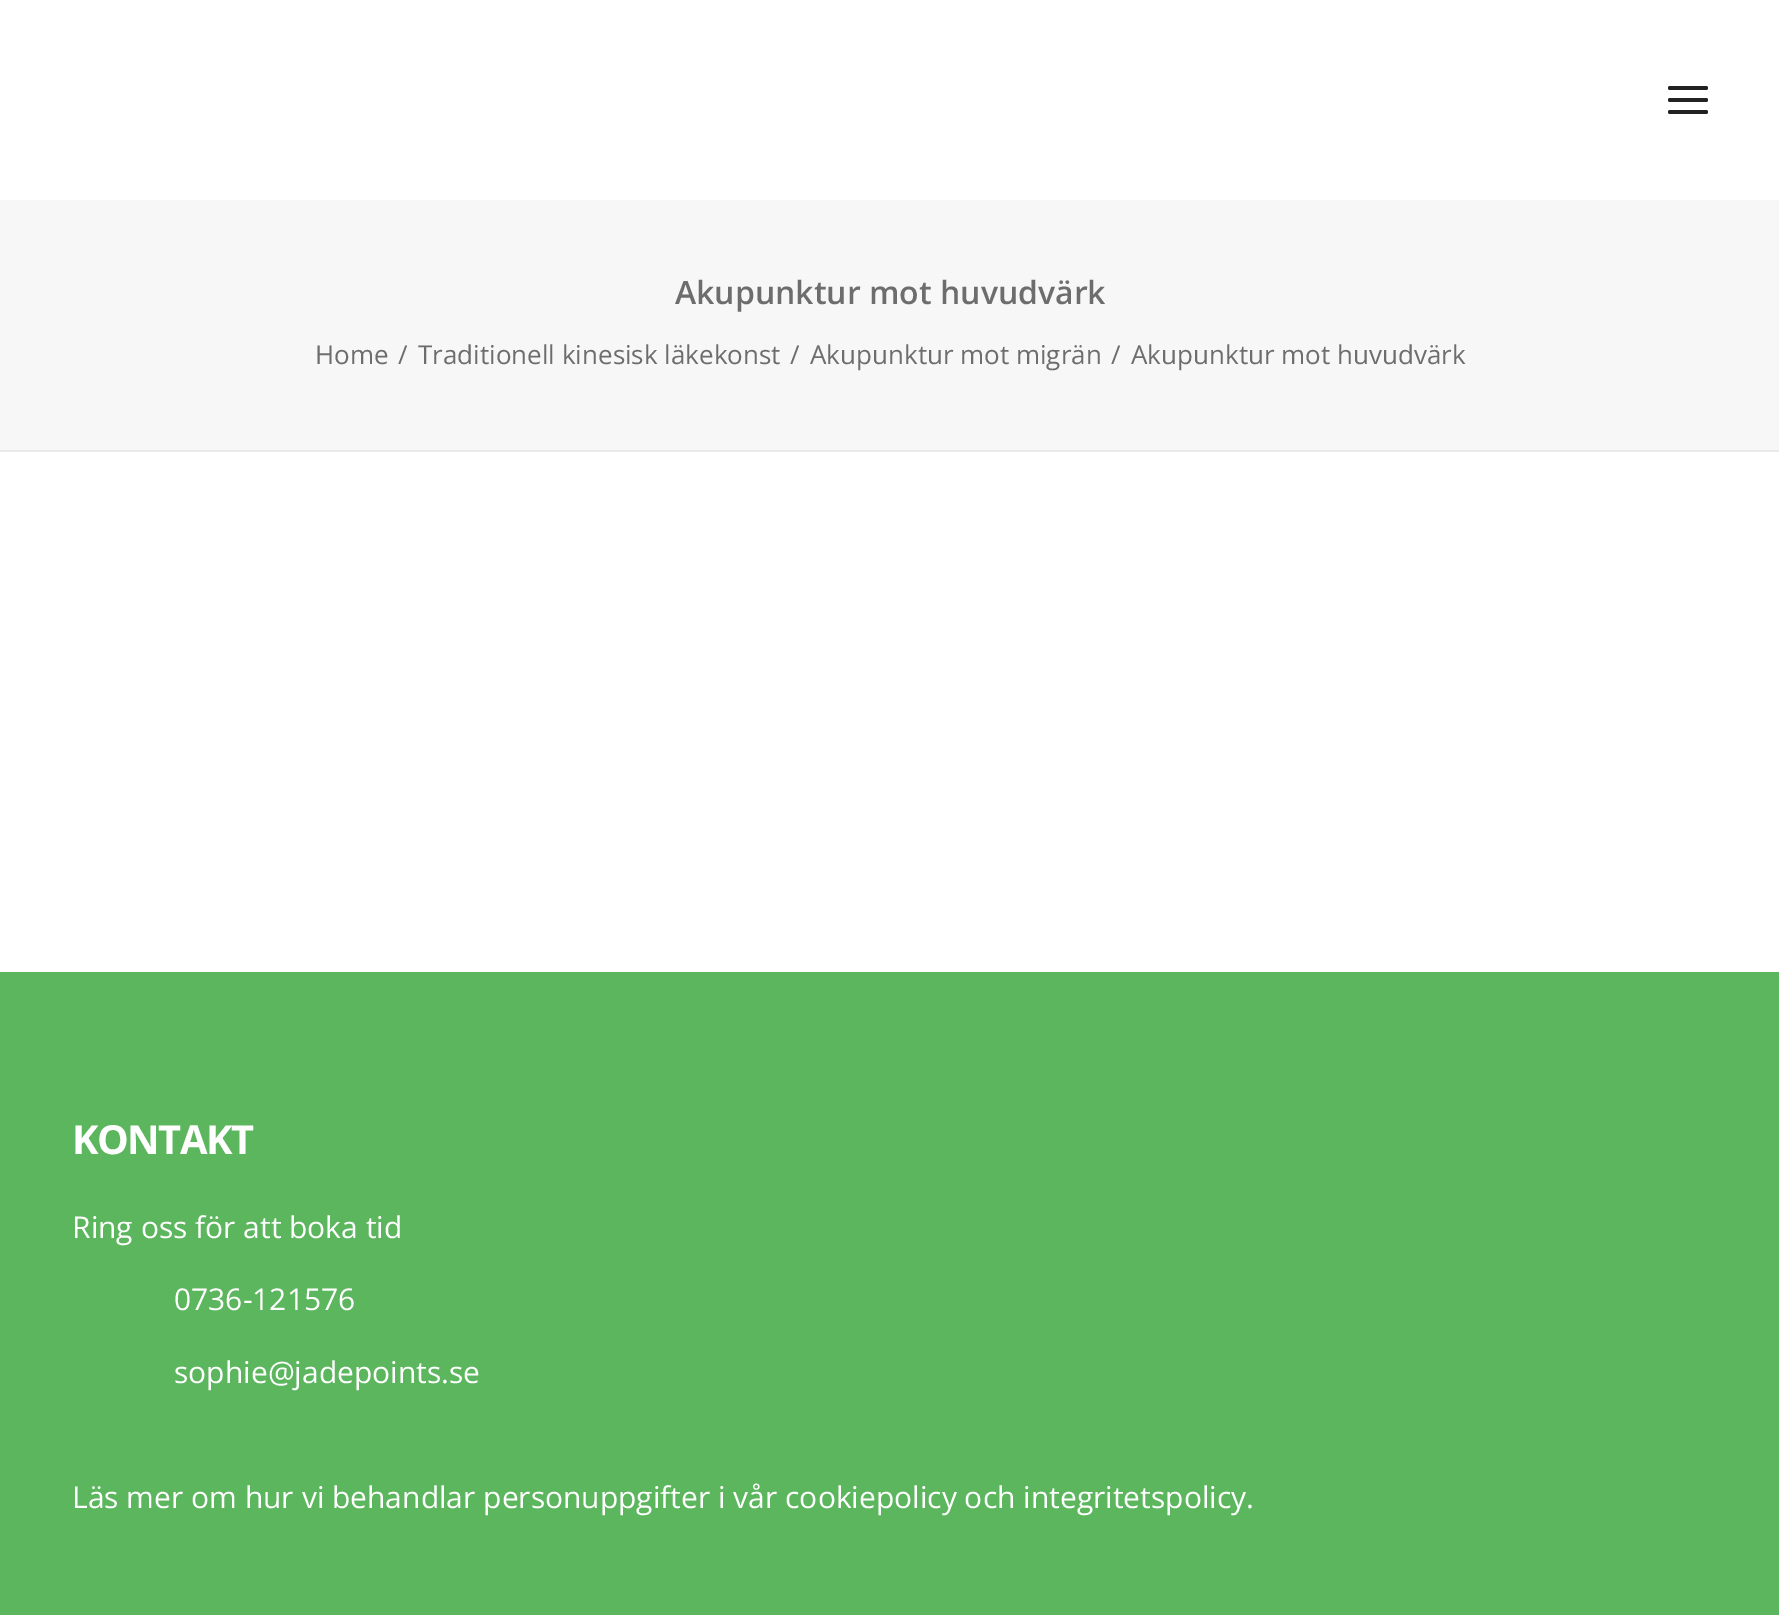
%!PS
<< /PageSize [1779 1615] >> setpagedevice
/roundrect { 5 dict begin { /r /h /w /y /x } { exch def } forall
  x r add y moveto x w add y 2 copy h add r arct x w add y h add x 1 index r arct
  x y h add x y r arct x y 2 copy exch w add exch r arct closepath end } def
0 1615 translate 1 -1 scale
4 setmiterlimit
1 setgray
0 0 1779 1615 rectfill
0.133 setgray
1668 98 40 4 2 roundrect fill
1668 86 40 4 2 roundrect fill
1668 110 40 4 2 roundrect fill
0.969 setgray
0 200 1779 250 rectfill
0.918 setgray
0 450 1779 2 rectfill
/OpenSans-SemiBold [32 0 0 -32 0 0] selectfont
0.427 setgray
675 304 moveto (Akupunktur mot huvudvärk) show
/OpenSans-Regular [26 0 0 -26 0 0] selectfont
315 364 moveto (Home) show
398 364 moveto (/) show
418 364 moveto (Traditionell kinesisk läkekonst) show
790 364 moveto (/) show
810 364 moveto (Akupunktur mot migrän) show
1111 364 moveto (/) show
1131 364 moveto (Akupunktur mot huvudvärk) show
0.357 0.714 0.365 setrgbcolor
0 972 1779 643 rectfill
/OpenSans-Bold [40 0 0 -40 0 0] selectfont
1 setgray
72 1154 moveto -1.5 0 (KONTAKT) ashow
/OpenSans-Regular [30 0 0 -30 0 0] selectfont
72 1238 moveto (Ring oss för att boka tid) show
174 1310 moveto (0736-121576) show
174 1383 moveto (sophie@jadepoints.se) show
72 1508 moveto (Läs mer om hur vi behandlar personuppgifter i vår cookiepolicy och integritetspolicy.) show
showpage
